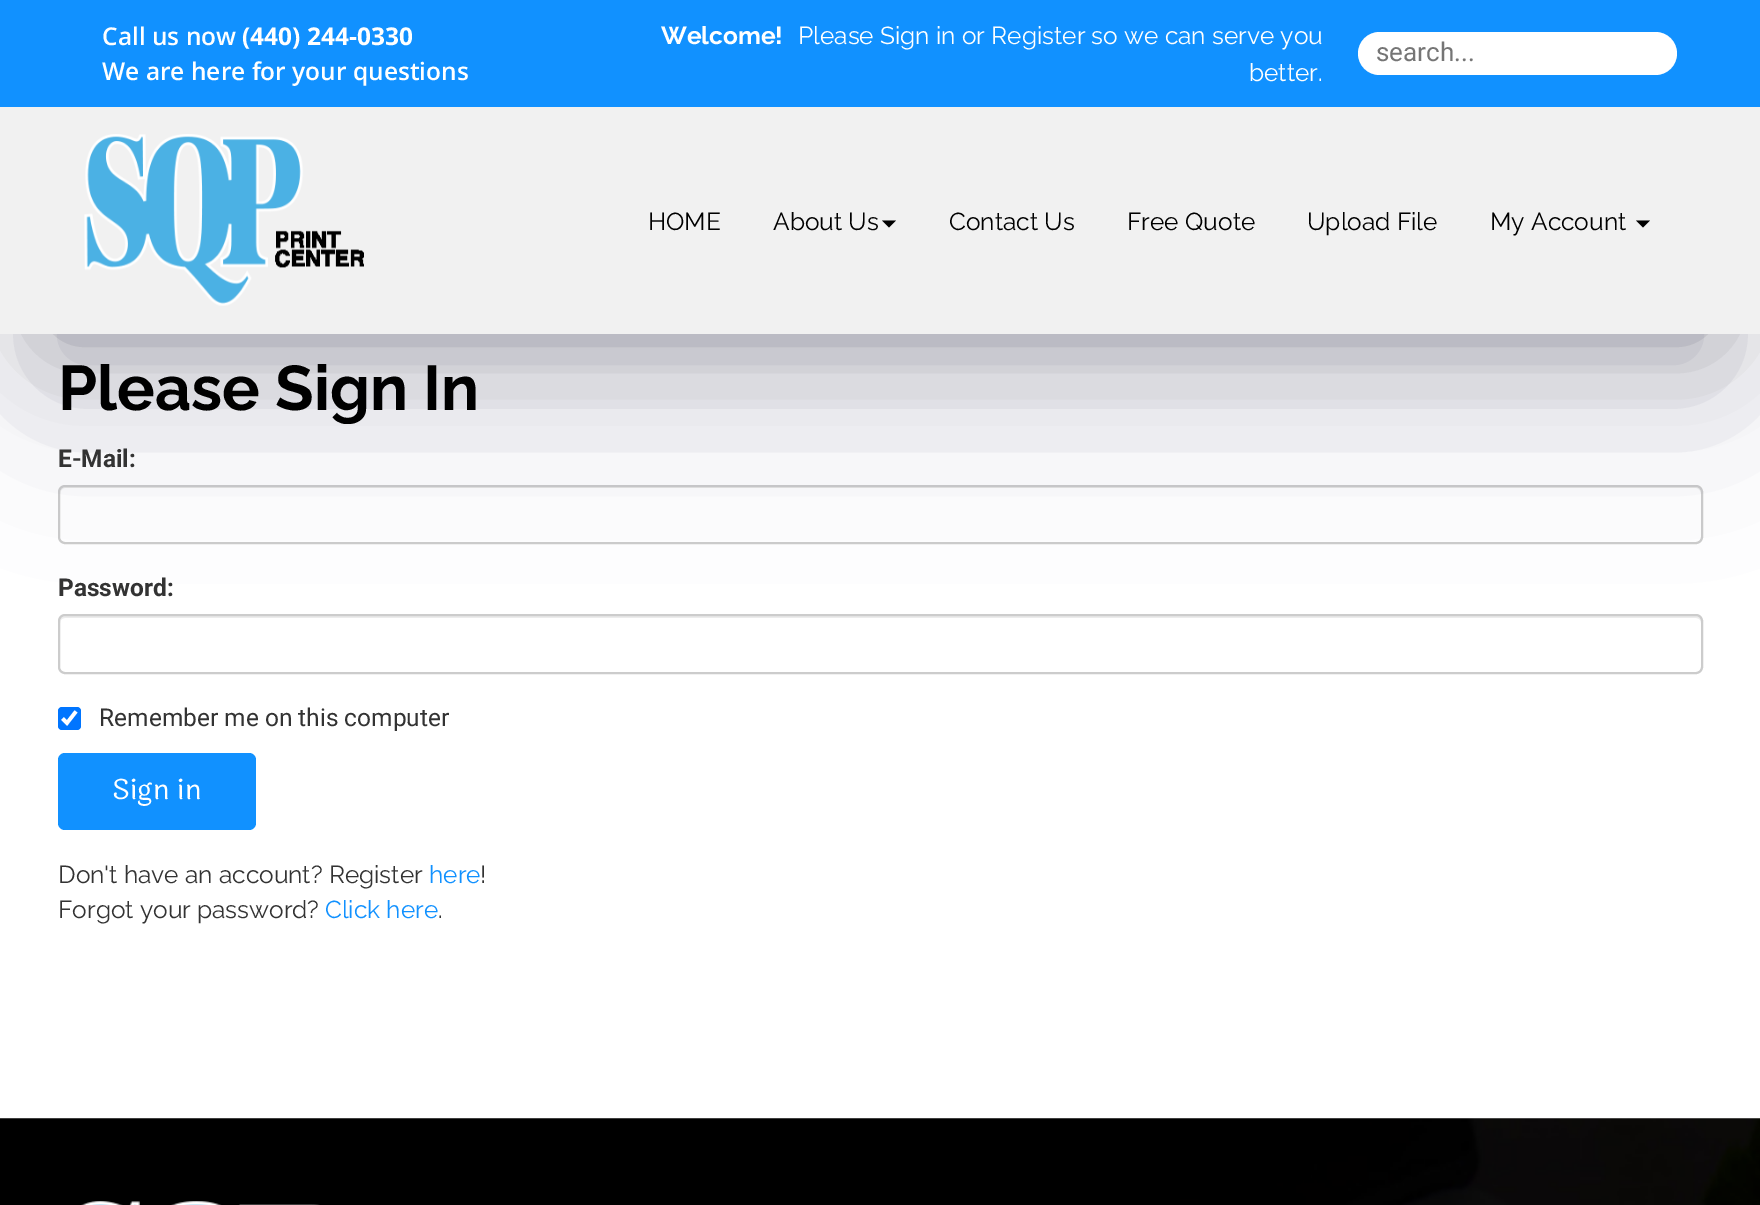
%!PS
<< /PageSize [1760 1205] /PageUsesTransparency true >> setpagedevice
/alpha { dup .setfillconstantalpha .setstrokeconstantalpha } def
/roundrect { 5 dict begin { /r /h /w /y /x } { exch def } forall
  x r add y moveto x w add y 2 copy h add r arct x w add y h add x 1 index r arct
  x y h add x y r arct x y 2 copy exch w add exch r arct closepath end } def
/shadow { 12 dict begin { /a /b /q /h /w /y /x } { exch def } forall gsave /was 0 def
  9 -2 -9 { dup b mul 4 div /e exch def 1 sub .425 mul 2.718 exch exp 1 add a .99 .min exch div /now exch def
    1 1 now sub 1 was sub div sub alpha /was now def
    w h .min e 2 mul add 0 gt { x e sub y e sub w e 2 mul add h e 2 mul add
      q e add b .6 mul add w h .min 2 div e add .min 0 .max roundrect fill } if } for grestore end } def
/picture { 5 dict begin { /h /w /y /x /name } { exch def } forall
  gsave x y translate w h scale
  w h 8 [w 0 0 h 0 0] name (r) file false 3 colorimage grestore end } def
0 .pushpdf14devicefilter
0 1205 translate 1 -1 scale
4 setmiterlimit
1 setgray
0 0 1760 1205 rectfill
0.925 setgray
newpath 65 488 moveto 1696 488 lineto 1699 488 1701 491 1701 494 curveto 1701 491 1700 487 1696 487 curveto 65 487 lineto 61 487 60 491 60 494 curveto 60 491 62 488 65 488 curveto closepath fill
0.8 setgray
2 setlinewidth
59 486 1643 57 6 roundrect stroke
0 setgray
53 105 1655 229 0 52.5 0.3 shadow
0.925 setgray
newpath 65 618 moveto 1696 618 lineto 1699 618 1701 620 1701 623 curveto 1701 620 1700 616 1696 616 curveto 65 616 lineto 61 616 60 620 60 623 curveto 60 620 62 618 65 618 curveto closepath fill
0.8 setgray
59 615 1643 58 6 roundrect stroke
0.196 0.196 0.365 setrgbcolor
35 123 1691 264 0 87.5 0.25 shadow
0.945 setgray
0 107 1760 227 rectfill
0.067 0.569 1 setrgbcolor
0 0 1760 107 rectfill
/OpenSans-SemiBold [24.5 0 0 -24.5 0 0] selectfont
1 setgray
102 45 moveto (Call us now) show
/OpenSans-Bold [24.5 0 0 -24.5 0 0] selectfont
242 45 moveto (\(440\) 244-0330) show
/OpenSans-SemiBold [24.5 0 0 -24.5 0 0] selectfont
102 80 moveto (We are here for your questions) show
/Raleway-Bold [24.5 0 0 -24.5 0 0] selectfont
661 44 moveto (Welcome!) show
/Raleway-Regular [24.5 0 0 -24.5 0 0] selectfont
798 44 moveto (Please Sign in or Register so we can serve you) show
1249 81 moveto (better.) show
1358 32 319 43 21.5 roundrect fill
/Roboto-Regular [26 0 0 -26 0 0] selectfont
0.459 setgray
1376 61 moveto (search...) show
(img1.rgb) 84 134 280 172 picture
/Raleway-Regular [24.5 0 0 -24.5 0 0] selectfont
0 setgray
648 230 moveto (HOME) show
773 230 moveto (About Us) show
newpath 882 220.5 moveto 896 220.5 lineto 889 227.5 lineto closepath fill
949 230 moveto (Contact Us) show
1127 230 moveto (Free Quote) show
1307 230 moveto (Upload File) show
1490 230 moveto (My Account) show
newpath 1636 220.5 moveto 1650 220.5 lineto 1643 227.5 lineto closepath fill
/Raleway-Bold [63 0 0 -63 0 0] selectfont
58 410 moveto (Please Sign In) show
/Roboto-Bold [24.5 0 0 -24.5 0 0] selectfont
0.2 setgray
58 467 moveto (E-Mail:) show
58 596 moveto (Password:) show
0 0.459 1 setrgbcolor
58 707 23 23 4 roundrect fill
1 setgray
3.6 setlinewidth
newpath 62.5 718.5 moveto 67 723 lineto 76 711.5 lineto stroke
/Roboto-Regular [24.5 0 0 -24.5 0 0] selectfont
0.2 setgray
99 726 moveto (Remember me on this computer) show
0.067 0.569 1 setrgbcolor
58 753 198 77 7 roundrect fill
/Laila-Regular [28 0 0 -28 0 0] selectfont
1 setgray
112 799 moveto (Sign in) show
/Raleway-Regular [24.5 0 0 -24.5 0 0] selectfont
0.2 setgray
58 883 moveto (Don't have an account? Register) show
0.067 0.569 1 setrgbcolor
429 883 moveto (here) show
0.2 setgray
480 883 moveto (!) show
58 918 moveto (Forgot your password?) show
0.067 0.569 1 setrgbcolor
325 918 moveto (Click here) show
0.2 setgray
438 918 moveto (.) show
(img2.rgb) 0 1118 1760 87 picture
(img3.rgb) 81 1201 239 4 picture
.poppdf14devicefilter showpage
